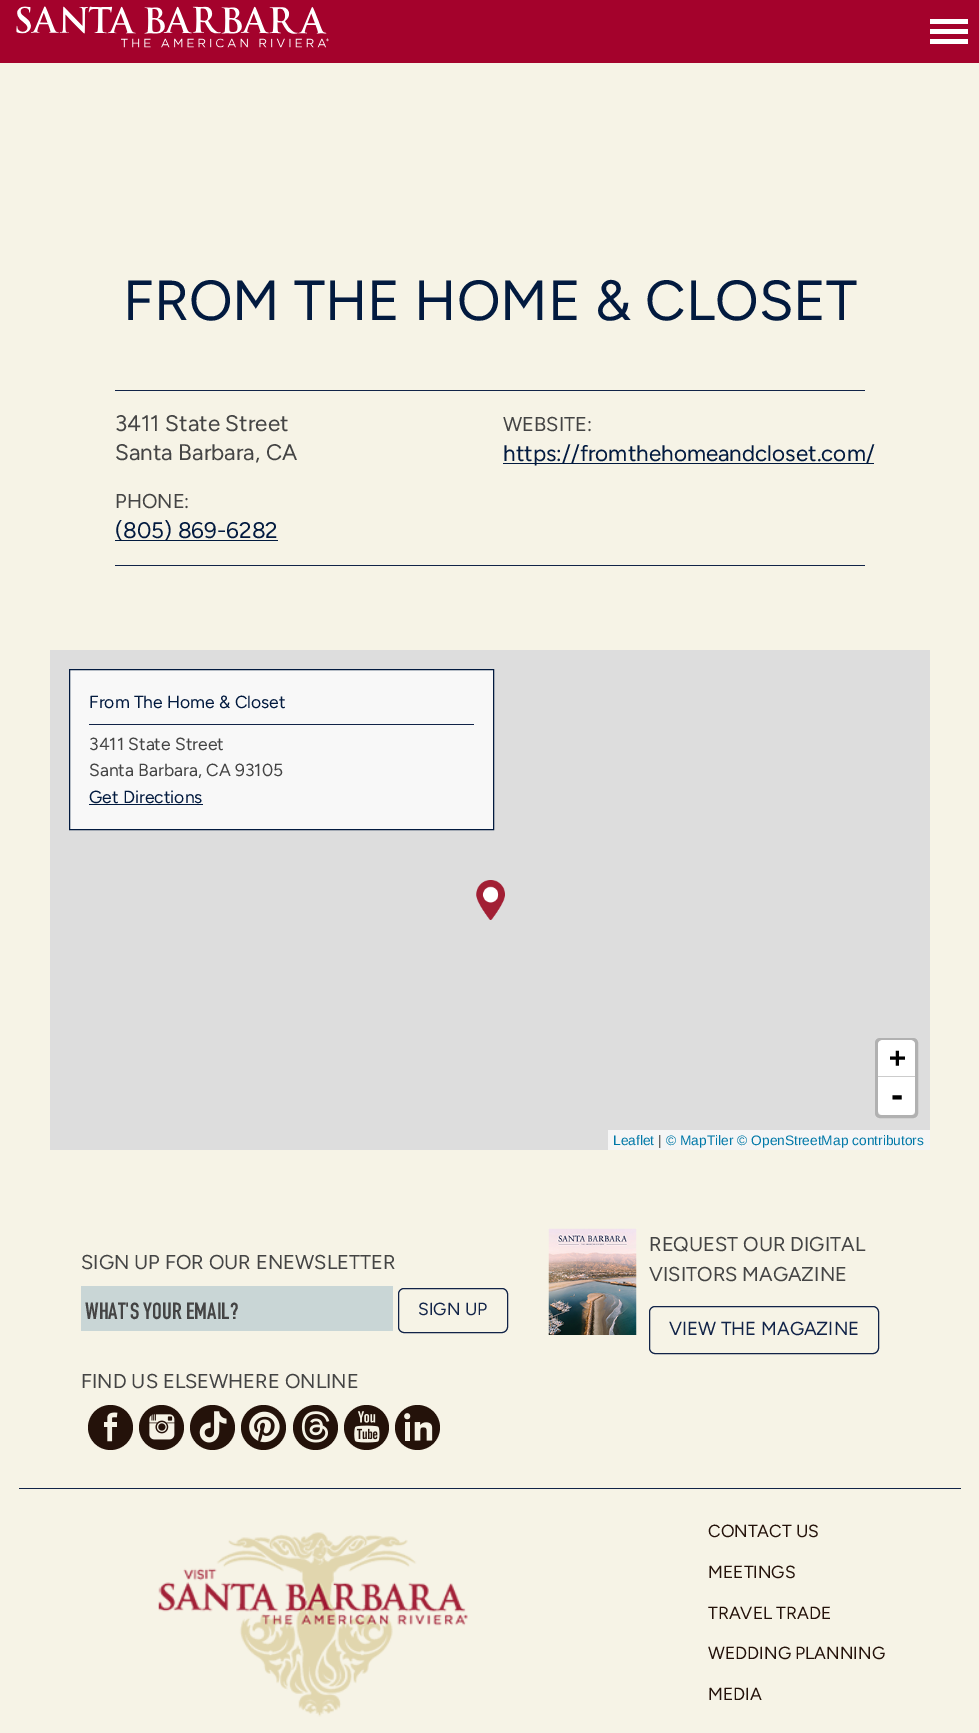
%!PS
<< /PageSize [979 1733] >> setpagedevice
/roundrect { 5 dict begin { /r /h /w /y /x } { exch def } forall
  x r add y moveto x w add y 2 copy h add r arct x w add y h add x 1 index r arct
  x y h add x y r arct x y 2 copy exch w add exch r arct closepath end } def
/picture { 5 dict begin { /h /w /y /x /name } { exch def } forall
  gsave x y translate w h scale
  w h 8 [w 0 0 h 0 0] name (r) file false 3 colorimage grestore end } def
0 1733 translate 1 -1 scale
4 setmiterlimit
0.965 0.953 0.902 setrgbcolor
0 0 979 1733 rectfill
0.643 0.008 0.173 setrgbcolor
0 0 979 63 rectfill
(img1.rgb) 16 6 313 42 picture
1 setgray
930 39 38 5 rectfill
930 29 38 5 rectfill
930 19 38 5 rectfill
/Figtree-Regular [56.25 0 0 -56.25 0 0] selectfont
0.008 0.102 0.247 setrgbcolor
123 320 moveto (FROM THE HOME & CLOSET) show
0.067 0.137 0.282 setrgbcolor
115 390 750 1 rectfill
115 565 750 1 rectfill
/Figtree-Regular [22.5 0 0 -22.5 0 0] selectfont
0.267 setgray
115 431 moveto (3411 State Street) show
115 460 moveto (Santa Barbara, CA) show
/Figtree-Regular [20 0 0 -20 0 0] selectfont
115 508 moveto (PHONE:) show
0.008 0.102 0.247 setrgbcolor
115 540 163 1 rectfill
/Figtree-Regular [22.5 0 0 -22.5 0 0] selectfont
115 538 moveto (\(805\) 869-6282) show
/Figtree-Regular [20 0 0 -20 0 0] selectfont
0.267 setgray
503 431 moveto (WEBSITE:) show
0.008 0.102 0.247 setrgbcolor
503 463 371 1 rectfill
/Figtree-Regular [22.5 0 0 -22.5 0 0] selectfont
503 461 moveto (https://fromthehomeandcloset.com/) show
0.867 setgray
50 650 880 500 rectfill
0.973 setgray
newpath 69.5 669.5 moveto 493.5 669.5 lineto 493.5 829.5 lineto 69.5 829.5 lineto closepath gsave fill grestore
0.008 0.102 0.247 setrgbcolor
stroke
0.067 0.137 0.282 setrgbcolor
89 724 385 1 rectfill
/Figtree-Regular [17.5 0 0 -17.5 0 0] selectfont
0.008 0.102 0.247 setrgbcolor
89 708 moveto (From The Home & Closet) show
0.267 setgray
89 750 moveto (3411 State Street) show
89 776 moveto (Santa Barbara, CA 93105) show
0.008 0.102 0.247 setrgbcolor
89 803 moveto (Get Directions) show
89 804 114 1 rectfill
(img2.rgb) 476 880 29 40 picture
0.694 setgray
3 setlinewidth
876.5 1039.5 40 77 3.5 roundrect stroke
1 setgray
newpath 883 1040 moveto 910 1040 lineto 913 1040 915 1042 915 1045 curveto 915 1078 lineto 878 1078 lineto 878 1045 lineto 878 1042 880 1040 883 1040 curveto closepath fill
0.8 setgray
878 1076 37 1 rectfill
/DejaVuSansMono-Bold [28 0 0 -28 0 0] selectfont
0 setgray
889 1067 moveto (+) show
1 setgray
newpath 878 1078 moveto 915 1078 lineto 915 1110 lineto 915 1113 913 1115 910 1115 curveto 883 1115 lineto 880 1115 878 1113 878 1110 curveto closepath fill
/DejaVuSansMono-Bold [30 0 0 -30 0 0] selectfont
0 setgray
888 1106 moveto (-) show
0.961 setgray
608 1130 322 20 rectfill
/LiberationSans-Regular [13.75 0 0 -13.75 0 0] selectfont
0 0.471 0.659 setrgbcolor
613 1145 moveto (Leaflet) show
0.2 setgray
658 1145 moveto (|) show
0 0.471 0.659 setrgbcolor
666 1145 moveto (© MapTiler © OpenStreetMap contributors) show
/Figtree-Regular [20 0 0 -20 0 0] selectfont
0.267 setgray
81 1269 moveto (SIGN UP FOR OUR ENEWSLETTER) show
0.788 0.839 0.839 setrgbcolor
81 1286 312 45 rectfill
/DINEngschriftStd-Regular [23 0 0 -23 0 0] selectfont
0.267 setgray
85 1319 moveto (WHAT'S YOUR EMAIL?) show
0.067 0.137 0.282 setrgbcolor
1 setlinewidth
398.5 1288.5 109 44 5.5 roundrect stroke
/Figtree-Regular [17.5 0 0 -17.5 0 0] selectfont
418 1315 moveto (SIGN UP) show
(img3.rgb) 548 1228 89 107 picture
/Figtree-Regular [20 0 0 -20 0 0] selectfont
0.267 setgray
649 1251 moveto (REQUEST OUR DIGITAL) show
649 1281 moveto (VISITORS MAGAZINE) show
0.067 0.137 0.282 setrgbcolor
649.5 1306.5 229 47 5.5 roundrect stroke
/Figtree-Regular [18.75 0 0 -18.75 0 0] selectfont
669 1335 moveto (VIEW THE MAGAZINE) show
/Figtree-Regular [20 0 0 -20 0 0] selectfont
0.267 setgray
81 1388 moveto (FIND US ELSEWHERE ONLINE) show
0.141 0.071 0.039 setrgbcolor
newpath 110.5 1427.5 22.5 0 360 arc closepath fill
(img4.rgb) 104 1412 14 30 picture
newpath 161.5 1427.5 22.5 0 360 arc closepath fill
(img5.rgb) 149 1414 26 26 picture
newpath 212.5 1427.5 22.5 0 360 arc closepath fill
(img6.rgb) 199 1411 28 32 picture
newpath 263.5 1427.5 22.5 0 360 arc closepath fill
(img7.rgb) 249 1411 31 32 picture
newpath 315.5 1427.5 22.5 0 360 arc closepath fill
(img8.rgb) 301 1411 29 32 picture
newpath 366.5 1427.5 22.5 0 360 arc closepath fill
(img9.rgb) 354 1411 26 32 picture
newpath 417.5 1427.5 22.5 0 360 arc closepath fill
(img10.rgb) 404 1413 29 28 picture
0.067 0.137 0.282 setrgbcolor
19 1488 942 1 rectfill
(img11.rgb) 158 1532 310 185 picture
/Figtree-Regular [17.5 0 0 -17.5 0 0] selectfont
0.141 0.071 0.039 setrgbcolor
708 1537 moveto (CONTACT US) show
708 1578 moveto (MEETINGS) show
708 1619 moveto (TRAVEL TRADE) show
708 1659 moveto (WEDDING PLANNING) show
708 1700 moveto (MEDIA) show
showpage
